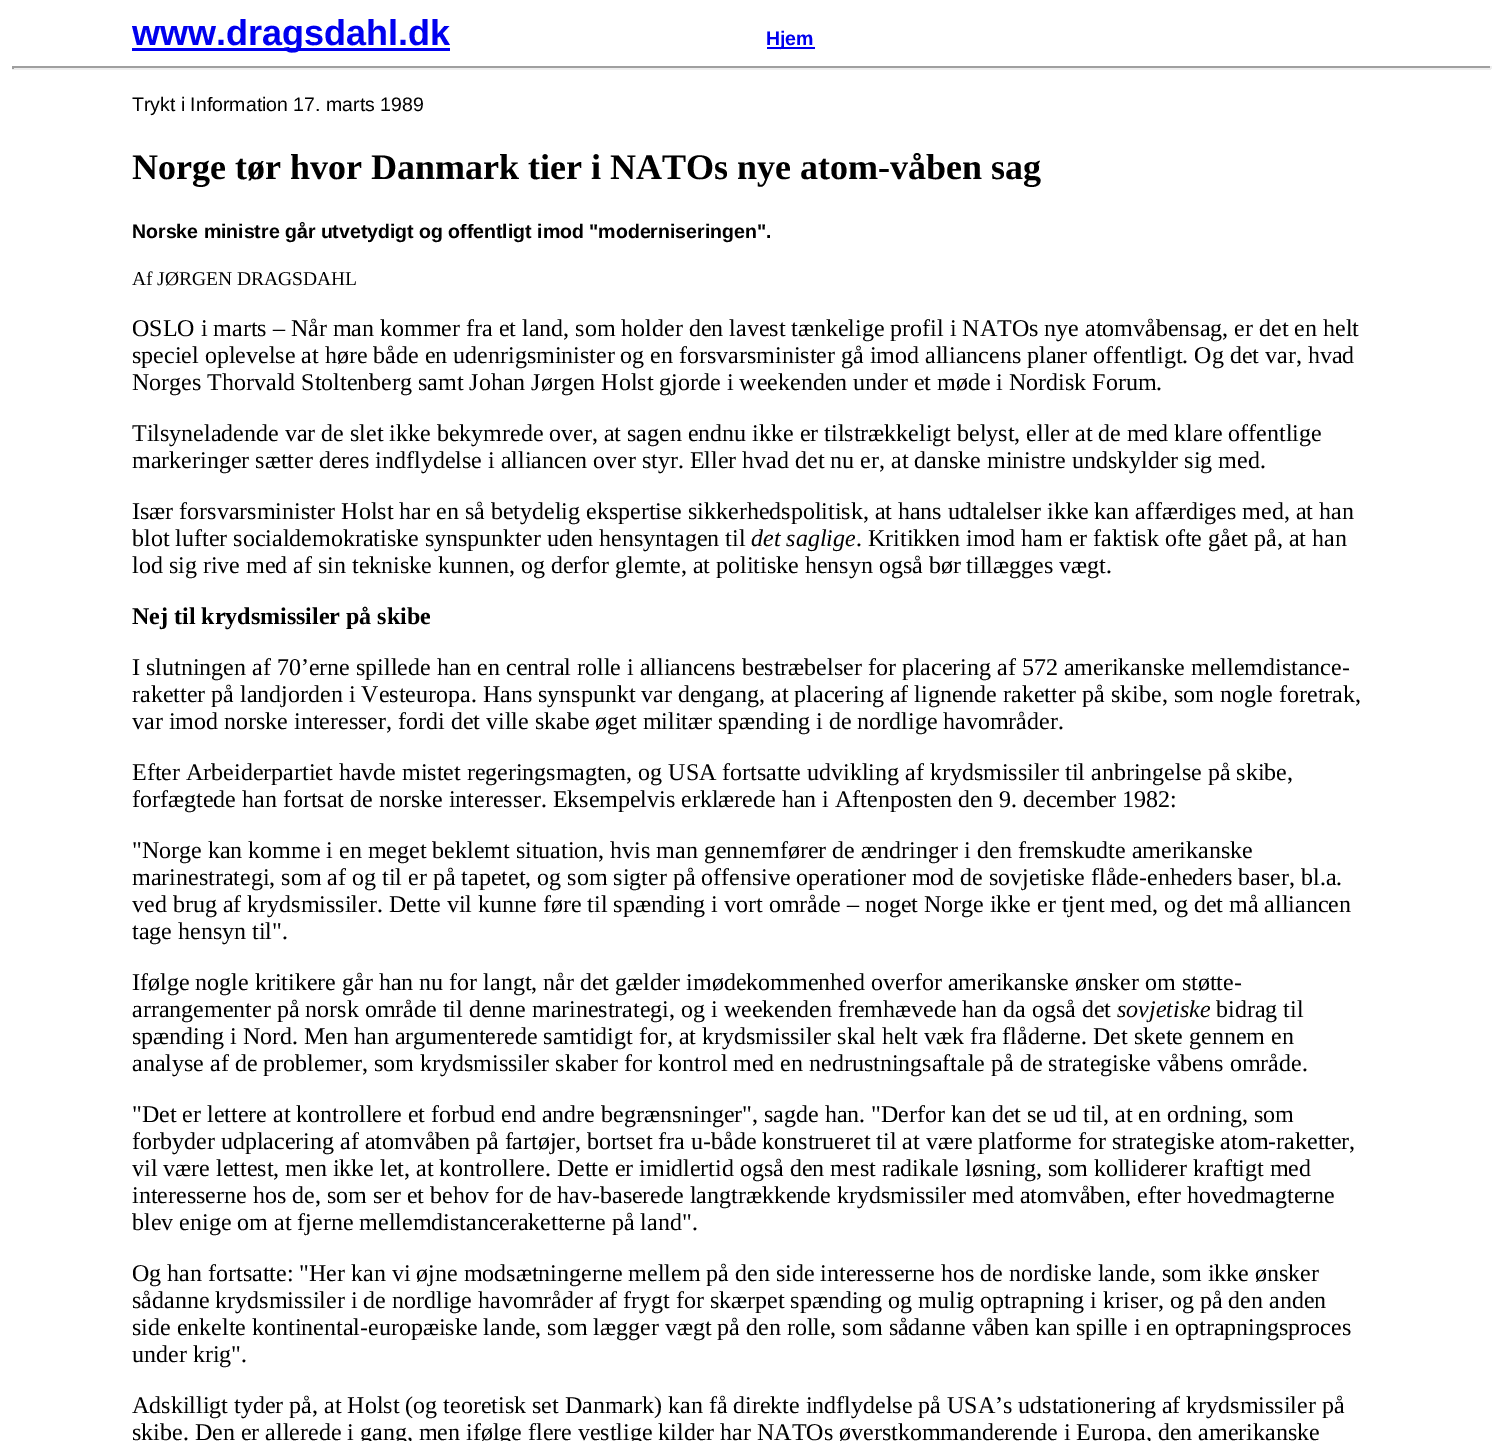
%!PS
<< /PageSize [1502 1441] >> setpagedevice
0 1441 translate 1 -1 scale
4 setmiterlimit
1 setgray
0 0 1502 1441 rectfill
0 0 0.933 setrgbcolor
132 48 318 3 rectfill
/LiberationSans-Bold [36 0 0 -36 0 0] selectfont
132 45 moveto (www.dragsdahl.dk) show
767 47 48 2 rectfill
/LiberationSans-Bold [19.5 0 0 -19.5 0 0] selectfont
766 45 moveto (Hjem) show
0.624 setgray
12 66 1479 2 rectfill
0.933 setgray
1490 66 2 3 rectfill
12 68 1479 2 rectfill
0.624 setgray
12 66 2 3 rectfill
/LiberationSans-Regular [19.5 0 0 -19.5 0 0] selectfont
0 setgray
132 111 moveto (Trykt i Information 17. marts 1989) show
/LiberationSerif-Bold [36 0 0 -36 0 0] selectfont
132 179 moveto (Norge tør hvor Danmark tier i NATOs nye atom-våben sag) show
/LiberationSans-Bold [19.5 0 0 -19.5 0 0] selectfont
132 238 moveto (Norske ministre går utvetydigt og offentligt imod "moderniseringen".) show
/LiberationSerif-Regular [19.5 0 0 -19.5 0 0] selectfont
132 285 moveto (Af JØRGEN DRAGSDAHL) show
/LiberationSerif-Regular [24 0 0 -24 0 0] selectfont
132 336 moveto (OSLO i marts – Når man kommer fra et land, som holder den lavest tænkelige profil i NATOs nye atomvåbensag, er det en helt) show
132 363 moveto (speciel oplevelse at høre både en udenrigsminister og en forsvarsminister gå imod alliancens planer offentligt. Og det var, hvad) show
132 390 moveto (Norges Thorvald Stoltenberg samt Johan Jørgen Holst gjorde i weekenden under et møde i Nordisk Forum.) show
132 441 moveto (Tilsyneladende var de slet ikke bekymrede over, at sagen endnu ikke er tilstrækkeligt belyst, eller at de med klare offentlige) show
132 468 moveto (markeringer sætter deres indflydelse i alliancen over styr. Eller hvad det nu er, at danske ministre undskylder sig med.) show
132 519 moveto (Især forsvarsminister Holst har en så betydelig ekspertise sikkerhedspolitisk, at hans udtalelser ikke kan affærdiges med, at han) show
132 546 moveto (blot lufter socialdemokratiske synspunkter uden hensyntagen til) show
/LiberationSerif-Italic [24 0 0 -24 0 0] selectfont
751 546 moveto (det saglige) show
/LiberationSerif-Regular [24 0 0 -24 0 0] selectfont
856 546 moveto (. Kritikken imod ham er faktisk ofte gået på, at han) show
132 573 moveto (lod sig rive med af sin tekniske kunnen, og derfor glemte, at politiske hensyn også bør tillægges vægt.) show
/LiberationSerif-Bold [24 0 0 -24 0 0] selectfont
132 624 moveto (Nej til krydsmissiler på skibe) show
/LiberationSerif-Regular [24 0 0 -24 0 0] selectfont
132 675 moveto (I slutningen af 70’erne spillede han en central rolle i alliancens bestræbelser for placering af 572 amerikanske mellemdistance-) show
132 702 moveto (raketter på landjorden i Vesteuropa. Hans synspunkt var dengang, at placering af lignende raketter på skibe, som nogle foretrak,) show
132 729 moveto (var imod norske interesser, fordi det ville skabe øget militær spænding i de nordlige havområder.) show
132 780 moveto (Efter Arbeiderpartiet havde mistet regeringsmagten, og USA fortsatte udvikling af krydsmissiler til anbringelse på skibe,) show
132 807 moveto (forfægtede han fortsat de norske interesser. Eksempelvis erklærede han i Aftenposten den 9. december 1982:) show
132 858 moveto ("Norge kan komme i en meget beklemt situation, hvis man gennemfører de ændringer i den fremskudte amerikanske) show
132 885 moveto (marinestrategi, som af og til er på tapetet, og som sigter på offensive operationer mod de sovjetiske flåde-enheders baser, bl.a.) show
132 912 moveto (ved brug af krydsmissiler. Dette vil kunne føre til spænding i vort område – noget Norge ikke er tjent med, og det må alliancen) show
132 939 moveto (tage hensyn til".) show
132 990 moveto (Ifølge nogle kritikere går han nu for langt, når det gælder imødekommenhed overfor amerikanske ønsker om støtte-) show
132 1017 moveto (arrangementer på norsk område til denne marinestrategi, og i weekenden fremhævede han da også det) show
/LiberationSerif-Italic [24 0 0 -24 0 0] selectfont
1117 1017 moveto (sovjetiske) show
/LiberationSerif-Regular [24 0 0 -24 0 0] selectfont
1216 1017 moveto (bidrag til) show
132 1044 moveto (spænding i Nord. Men han argumenterede samtidigt for, at krydsmissiler skal helt væk fra flåderne. Det skete gennem en) show
132 1071 moveto (analyse af de problemer, som krydsmissiler skaber for kontrol med en nedrustningsaftale på de strategiske våbens område.) show
132 1122 moveto ("Det er lettere at kontrollere et forbud end andre begrænsninger", sagde han. "Derfor kan det se ud til, at en ordning, som) show
132 1149 moveto (forbyder udplacering af atomvåben på fartøjer, bortset fra u-både konstrueret til at være platforme for strategiske atom-raketter,) show
132 1176 moveto (vil være lettest, men ikke let, at kontrollere. Dette er imidlertid også den mest radikale løsning, som kolliderer kraftigt med) show
132 1203 moveto (interesserne hos de, som ser et behov for de hav-baserede langtrækkende krydsmissiler med atomvåben, efter hovedmagterne) show
132 1230 moveto (blev enige om at fjerne mellemdistanceraketterne på land".) show
132 1281 moveto (Og han fortsatte: "Her kan vi øjne modsætningerne mellem på den side interesserne hos de nordiske lande, som ikke ønsker) show
132 1308 moveto (sådanne krydsmissiler i de nordlige havområder af frygt for skærpet spænding og mulig optrapning i kriser, og på den anden) show
132 1335 moveto (side enkelte kontinental-europæiske lande, som lægger vægt på den rolle, som sådanne våben kan spille i en optrapningsproces) show
132 1362 moveto (under krig".) show
132 1413 moveto (Adskilligt tyder på, at Holst \(og teoretisk set Danmark\) kan få direkte indflydelse på USA’s udstationering af krydsmissiler på) show
132 1440 moveto (skibe. Den er allerede i gang, men ifølge flere vestlige kilder har NATOs øverstkommanderende i Europa, den amerikanske) show
showpage
